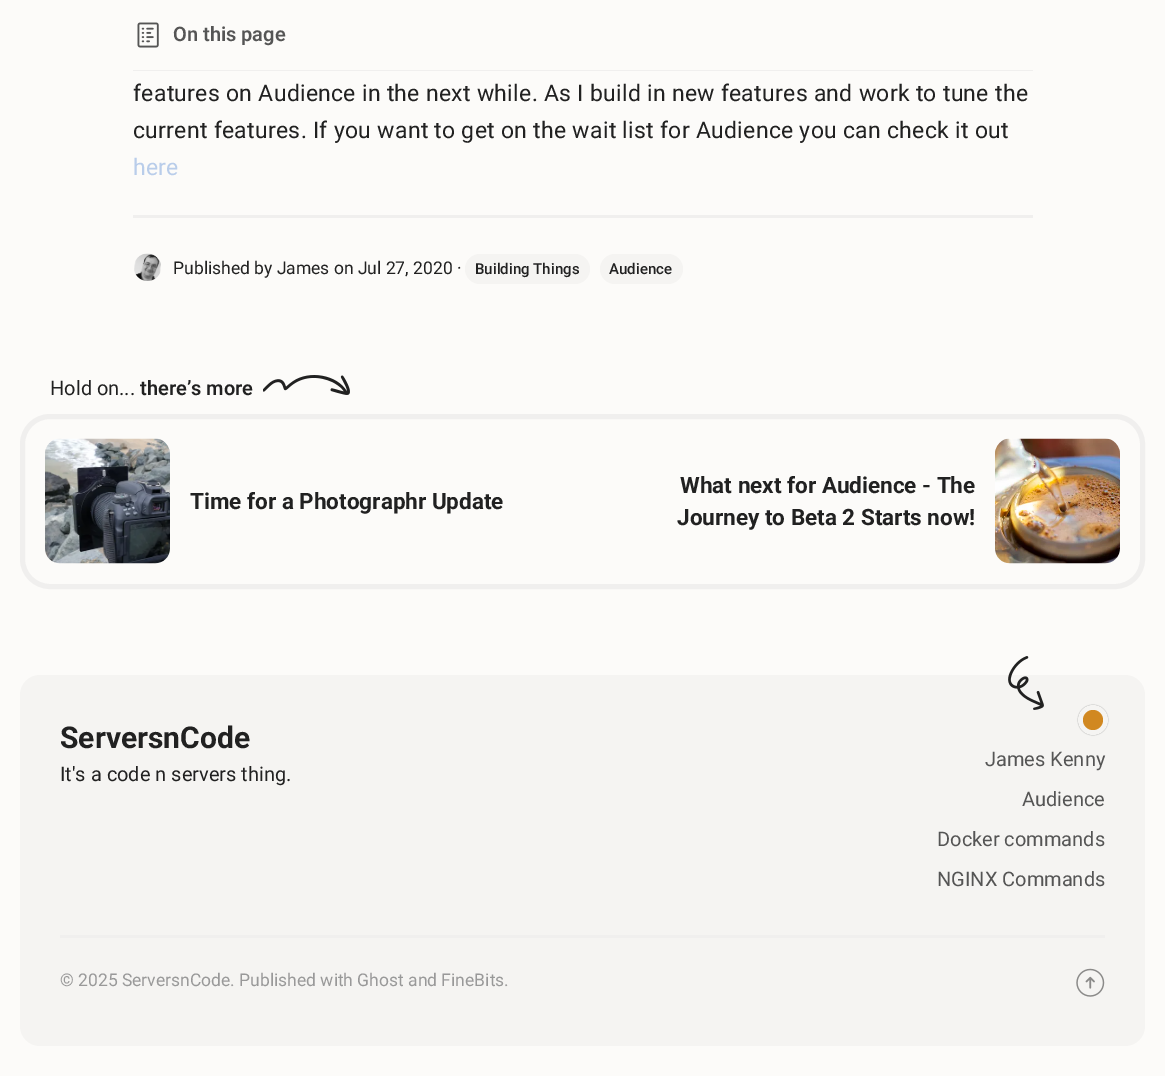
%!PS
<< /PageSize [1165 1076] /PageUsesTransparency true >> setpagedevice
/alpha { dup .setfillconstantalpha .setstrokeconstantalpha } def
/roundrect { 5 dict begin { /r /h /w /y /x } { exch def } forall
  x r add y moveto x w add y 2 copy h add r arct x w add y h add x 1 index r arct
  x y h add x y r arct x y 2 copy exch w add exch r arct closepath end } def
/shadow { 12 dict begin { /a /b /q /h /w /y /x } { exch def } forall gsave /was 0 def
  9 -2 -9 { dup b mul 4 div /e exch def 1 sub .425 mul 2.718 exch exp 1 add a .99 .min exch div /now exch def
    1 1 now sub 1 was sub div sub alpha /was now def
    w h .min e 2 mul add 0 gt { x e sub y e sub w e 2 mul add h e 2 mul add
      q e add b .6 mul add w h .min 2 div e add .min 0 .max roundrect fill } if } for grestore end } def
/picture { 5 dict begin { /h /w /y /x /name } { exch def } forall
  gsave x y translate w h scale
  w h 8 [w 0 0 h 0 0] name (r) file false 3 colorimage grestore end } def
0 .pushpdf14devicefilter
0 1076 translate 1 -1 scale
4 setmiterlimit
0.988 0.984 0.976 setrgbcolor
0 0 1165 1076 rectfill
0.941 0.937 0.933 setrgbcolor
133 70 900 1 rectfill
(img1.rgb) 137 22 22 26 picture
/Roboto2-SemiBold [20 0 0 -20 0 0] selectfont
0.333 setgray
173 41 moveto (On this page) show
/Roboto-Regular [23 0 0 -23 0 0] selectfont
0.129 setgray
133 101 moveto 0.28 0 (features on Audience in the next while. As I build in new features and work to tune the) ashow
133 138 moveto 0.28 0 (current features. If you want to get on the wait list for Audience you can check it out) ashow
0.725 0.804 0.918 setrgbcolor
133 175 moveto 0.28 0 (here) ashow
0.941 0.937 0.933 setrgbcolor
133 215 900 3 rectfill
(img2.rgb) 134 253 27 28 picture
/Roboto-Regular [17.5 0 0 -17.5 0 0] selectfont
0.129 setgray
173 274 moveto (Published by James on Jul 27, 2020 ·) show
0.961 0.957 0.949 setrgbcolor
465 254 125 30 15 roundrect fill
/Roboto-Medium [15 0 0 -15 0 0] selectfont
0.129 setgray
475 274 moveto (Building Things) show
0.961 0.957 0.949 setrgbcolor
600 254 83 30 15 roundrect fill
0.129 setgray
609 274 moveto (Audience) show
/Roboto-Regular [20 0 0 -20 0 0] selectfont
50 395 moveto (Hold on...) show
/Roboto-SemiBold [20 0 0 -20 0 0] selectfont
140 395 moveto (there’s more) show
(img3.rgb) 263 375 87 20 picture
0.941 0.937 0.933 setrgbcolor
5 setlinewidth
22.5 416.5 1120 170 27.5 roundrect stroke
(img4.rgb) 45 438 125 126 picture
/Roboto-Bold [22.5 0 0 -22.5 0 0] selectfont
0.129 setgray
190 509 moveto (Time for a Photographr Update) show
680 493 moveto (What next for Audience - The) show
677 525 moveto (Journey to Beta 2 Starts now!) show
(img5.rgb) 995 438 125 126 picture
0.961 0.957 0.949 setrgbcolor
20 675 1125 371 20 roundrect fill
(img6.rgb) 1008 656 36 54 picture
/Roboto-Bold [30 0 0 -30 0 0] selectfont
0.129 setgray
60 748 moveto (ServersnCode) show
/Roboto-Regular [20 0 0 -20 0 0] selectfont
60 781 moveto (It's a code n servers thing.) show
0.6 setgray
1078 705 30 30 15 0.5 1 shadow
0.961 0.957 0.949 setrgbcolor
newpath 1093 720 15 0 360 arc closepath fill
0.82 0.533 0.129 setrgbcolor
newpath 1093 720 10 0 360 arc closepath fill
0.333 setgray
985 766 moveto (James Kenny) show
1022 806 moveto (Audience) show
937 846 moveto (Docker commands) show
937 886 moveto (NGINX Commands) show
0.941 0.937 0.933 setrgbcolor
60 935 1045 3 rectfill
/Roboto-Regular [17.5 0 0 -17.5 0 0] selectfont
0.6 setgray
60 986 moveto (© 2025 ServersnCode. Published with Ghost and FineBits.) show
(img7.rgb) 1076 968 29 29 picture
.poppdf14devicefilter showpage
